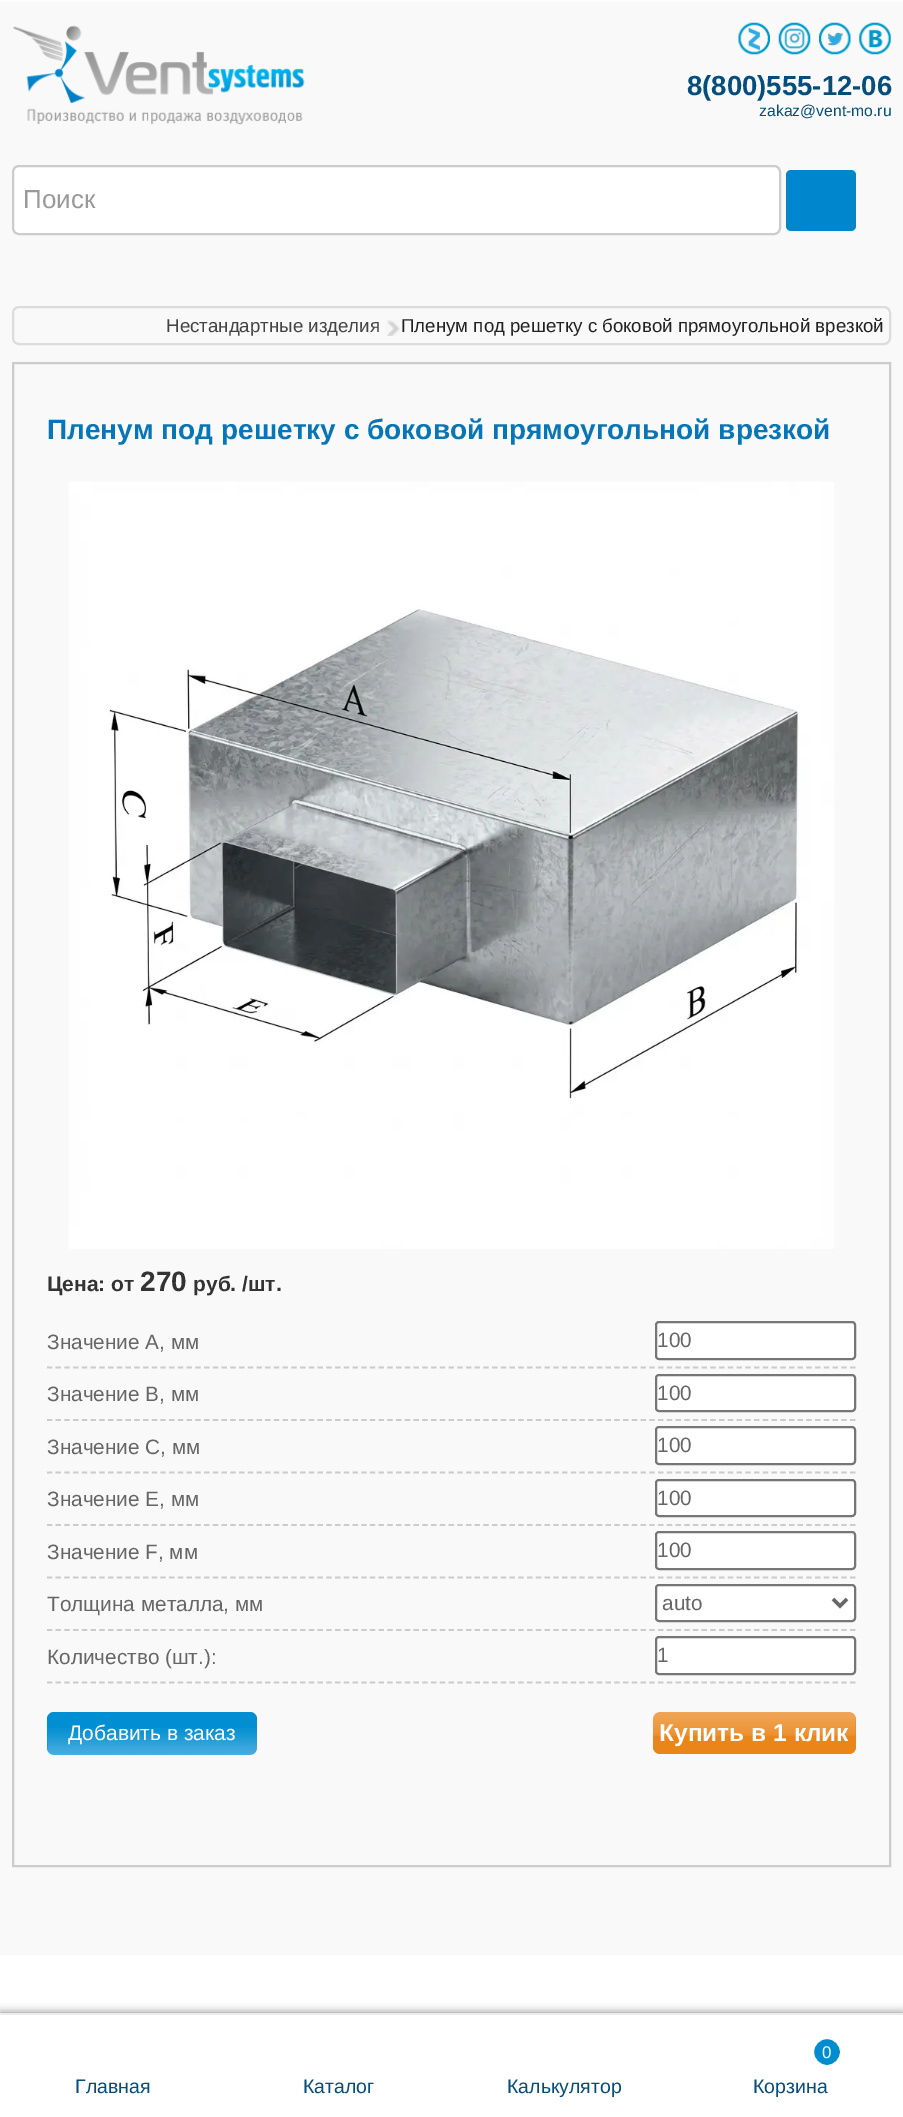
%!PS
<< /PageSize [903 2117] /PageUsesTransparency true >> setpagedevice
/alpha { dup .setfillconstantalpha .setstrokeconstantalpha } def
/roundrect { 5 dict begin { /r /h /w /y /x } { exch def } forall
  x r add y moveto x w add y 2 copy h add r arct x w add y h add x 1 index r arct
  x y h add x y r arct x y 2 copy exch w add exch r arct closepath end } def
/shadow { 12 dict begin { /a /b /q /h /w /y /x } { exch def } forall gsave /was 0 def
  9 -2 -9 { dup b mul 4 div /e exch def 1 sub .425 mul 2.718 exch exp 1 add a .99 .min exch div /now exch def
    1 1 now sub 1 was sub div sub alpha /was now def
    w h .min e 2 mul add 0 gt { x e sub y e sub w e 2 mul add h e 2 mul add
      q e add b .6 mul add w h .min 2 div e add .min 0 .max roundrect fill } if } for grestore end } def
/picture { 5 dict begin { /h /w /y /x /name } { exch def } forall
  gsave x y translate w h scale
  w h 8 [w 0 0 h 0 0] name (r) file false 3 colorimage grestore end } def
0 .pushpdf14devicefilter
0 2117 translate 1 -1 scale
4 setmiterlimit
0.976 setgray
0 0 903 2117 rectfill
0.992 setgray
0 0 903 2 rectfill
(img1.rgb) 13 25 292 100 picture
(img2.rgb) 738 22 32 33 picture
(img3.rgb) 778 22 33 33 picture
(img4.rgb) 819 22 32 33 picture
(img5.rgb) 859 22 32 33 picture
/LiberationSans-Bold [27.5 0 0 -27.5 0 0] selectfont
0.024 0.302 0.482 setrgbcolor
687 95 moveto (8\(800\)555-12-06) show
/LiberationSans-Regular [15.75 0 0 -15.75 0 0] selectfont
759 116 moveto (zakaz@vent-mo.ru) show
1 setgray
13 166 767 68 6 roundrect gsave fill grestore
0.8 setgray
2 setlinewidth
stroke
/LiberationSans-Regular [26 0 0 -26 0 0] selectfont
0.6 setgray
23 208 moveto (Поиск) show
0 0.525 0.8 setrgbcolor
786 170 70 61 5 roundrect fill
0.863 setgray
13 307 877 37 6 roundrect stroke
/LiberationSans-Regular [18.7 0 0 -18.7 0 0] selectfont
0.267 setgray
166 332 moveto (Нестандартные изделия) show
(img6.rgb) 385 320 15 16 picture
0.133 setgray
401 332 moveto (Пленум под решетку с боковой прямоугольной врезкой) show
0.8 setgray
13 363 877 1503 rectstroke
/LiberationSans-Bold [28 0 0 -28 0 0] selectfont
0.031 0.459 0.714 setrgbcolor
47 439 moveto (Пленум под решетку с боковой прямоугольной врезкой) show
(img7.rgb) 68 481 767 768 picture
/LiberationSans-Bold [21 0 0 -21 0 0] selectfont
0.2 setgray
47 1291 moveto (Цена: от) show
/LiberationSans-Bold [28 0 0 -28 0 0] selectfont
140 1291 moveto (270) show
/LiberationSans-Bold [21 0 0 -21 0 0] selectfont
193 1291 moveto (руб. /шт.) show
0.8 setgray
1.8 setlinewidth
[5.25 3.48] 0 setdash
newpath 47 1367.5 moveto 856 1367.5 lineto stroke
/LiberationSans-Regular [20.75 0 0 -20.75 0 0] selectfont
0.4 setgray
47 1349 moveto (Значение А, мм) show
1 setgray
656 1322 199 37 3 roundrect gsave fill grestore
0.463 setgray
2 setlinewidth
[] 0 setdash
stroke
0.4 setgray
657 1347 moveto (100) show
0.8 setgray
1.8 setlinewidth
[5.25 3.48] 0 setdash
newpath 47 1420 moveto 856 1420 lineto stroke
0.4 setgray
47 1401 moveto (Значение B, мм) show
1 setgray
656 1375 199 36 3 roundrect gsave fill grestore
0.463 setgray
2 setlinewidth
[] 0 setdash
stroke
0.4 setgray
657 1400 moveto (100) show
0.8 setgray
1.8 setlinewidth
[5.25 3.48] 0 setdash
newpath 47 1472.5 moveto 856 1472.5 lineto stroke
0.4 setgray
47 1454 moveto (Значение C, мм) show
1 setgray
656 1427 199 37 3 roundrect gsave fill grestore
0.463 setgray
2 setlinewidth
[] 0 setdash
stroke
0.4 setgray
657 1452 moveto (100) show
0.8 setgray
1.8 setlinewidth
[5.25 3.48] 0 setdash
newpath 47 1525 moveto 856 1525 lineto stroke
0.4 setgray
47 1506 moveto (Значение E, мм) show
1 setgray
656 1480 199 36 3 roundrect gsave fill grestore
0.463 setgray
2 setlinewidth
[] 0 setdash
stroke
0.4 setgray
657 1505 moveto (100) show
0.8 setgray
1.8 setlinewidth
[5.25 3.48] 0 setdash
newpath 47 1577.5 moveto 856 1577.5 lineto stroke
0.4 setgray
47 1559 moveto (Значение F, мм) show
1 setgray
656 1532 199 37 3 roundrect gsave fill grestore
0.463 setgray
2 setlinewidth
[] 0 setdash
stroke
0.4 setgray
657 1557 moveto (100) show
0.8 setgray
1.8 setlinewidth
[5.25 3.48] 0 setdash
newpath 47 1630 moveto 856 1630 lineto stroke
0.4 setgray
47 1611 moveto (Толщина металла, мм) show
1 setgray
656 1585 199 36 3 roundrect gsave fill grestore
0.463 setgray
2 setlinewidth
[] 0 setdash
stroke
0.4 setgray
3.5 setlinewidth
newpath 833 1599 moveto 840 1606 lineto 847 1599 lineto stroke
662 1610 moveto (auto) show
0.8 setgray
1.8 setlinewidth
[5.25 3.48] 0 setdash
newpath 47 1682.5 moveto 856 1682.5 lineto stroke
0.4 setgray
47 1664 moveto (Количество \(шт.\):) show
1 setgray
656 1637 199 37 3 roundrect gsave fill grestore
0.463 setgray
2 setlinewidth
[] 0 setdash
stroke
0.4 setgray
657 1662 moveto (1) show
0.008 0.557 0.824 setrgbcolor
47 1712 210 43 7 roundrect fill
(img8.rgb) 47 1728 210 27 picture
/LiberationSans-Regular [21 0 0 -21 0 0] selectfont
1 setgray
68 1740 moveto (Добавить в заказ) show
0.918 0.522 0.102 setrgbcolor
653 1712 203 42 7 roundrect fill
(img9.rgb) 653 1712 203 24 picture
/LiberationSans-Bold [24.5 0 0 -24.5 0 0] selectfont
1 setgray
659 1741 moveto (Купить в 1 клик) show
0 1955 903 58 rectfill
0 setgray
0 2013 903 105 0 4.5 0.5 shadow
1 setgray
0 2015 903 102 rectfill
0.925 setgray
0 2013 903 2 rectfill
/LiberationSans-Regular [19.5 0 0 -19.5 0 0] selectfont
0.024 0.302 0.482 setrgbcolor
75 2093 moveto (Главная) show
303 2093 moveto (Каталог) show
507 2093 moveto (Калькулятор) show
0 0.549 0.82 setrgbcolor
newpath 827 2052 14 0 360 arc closepath gsave fill grestore
1 setgray
stroke
/LiberationSans-Regular [17 0 0 -17 0 0] selectfont
822 2058 moveto (0) show
/LiberationSans-Regular [19.5 0 0 -19.5 0 0] selectfont
0.024 0.302 0.482 setrgbcolor
753 2093 moveto (Корзина) show
.poppdf14devicefilter showpage
